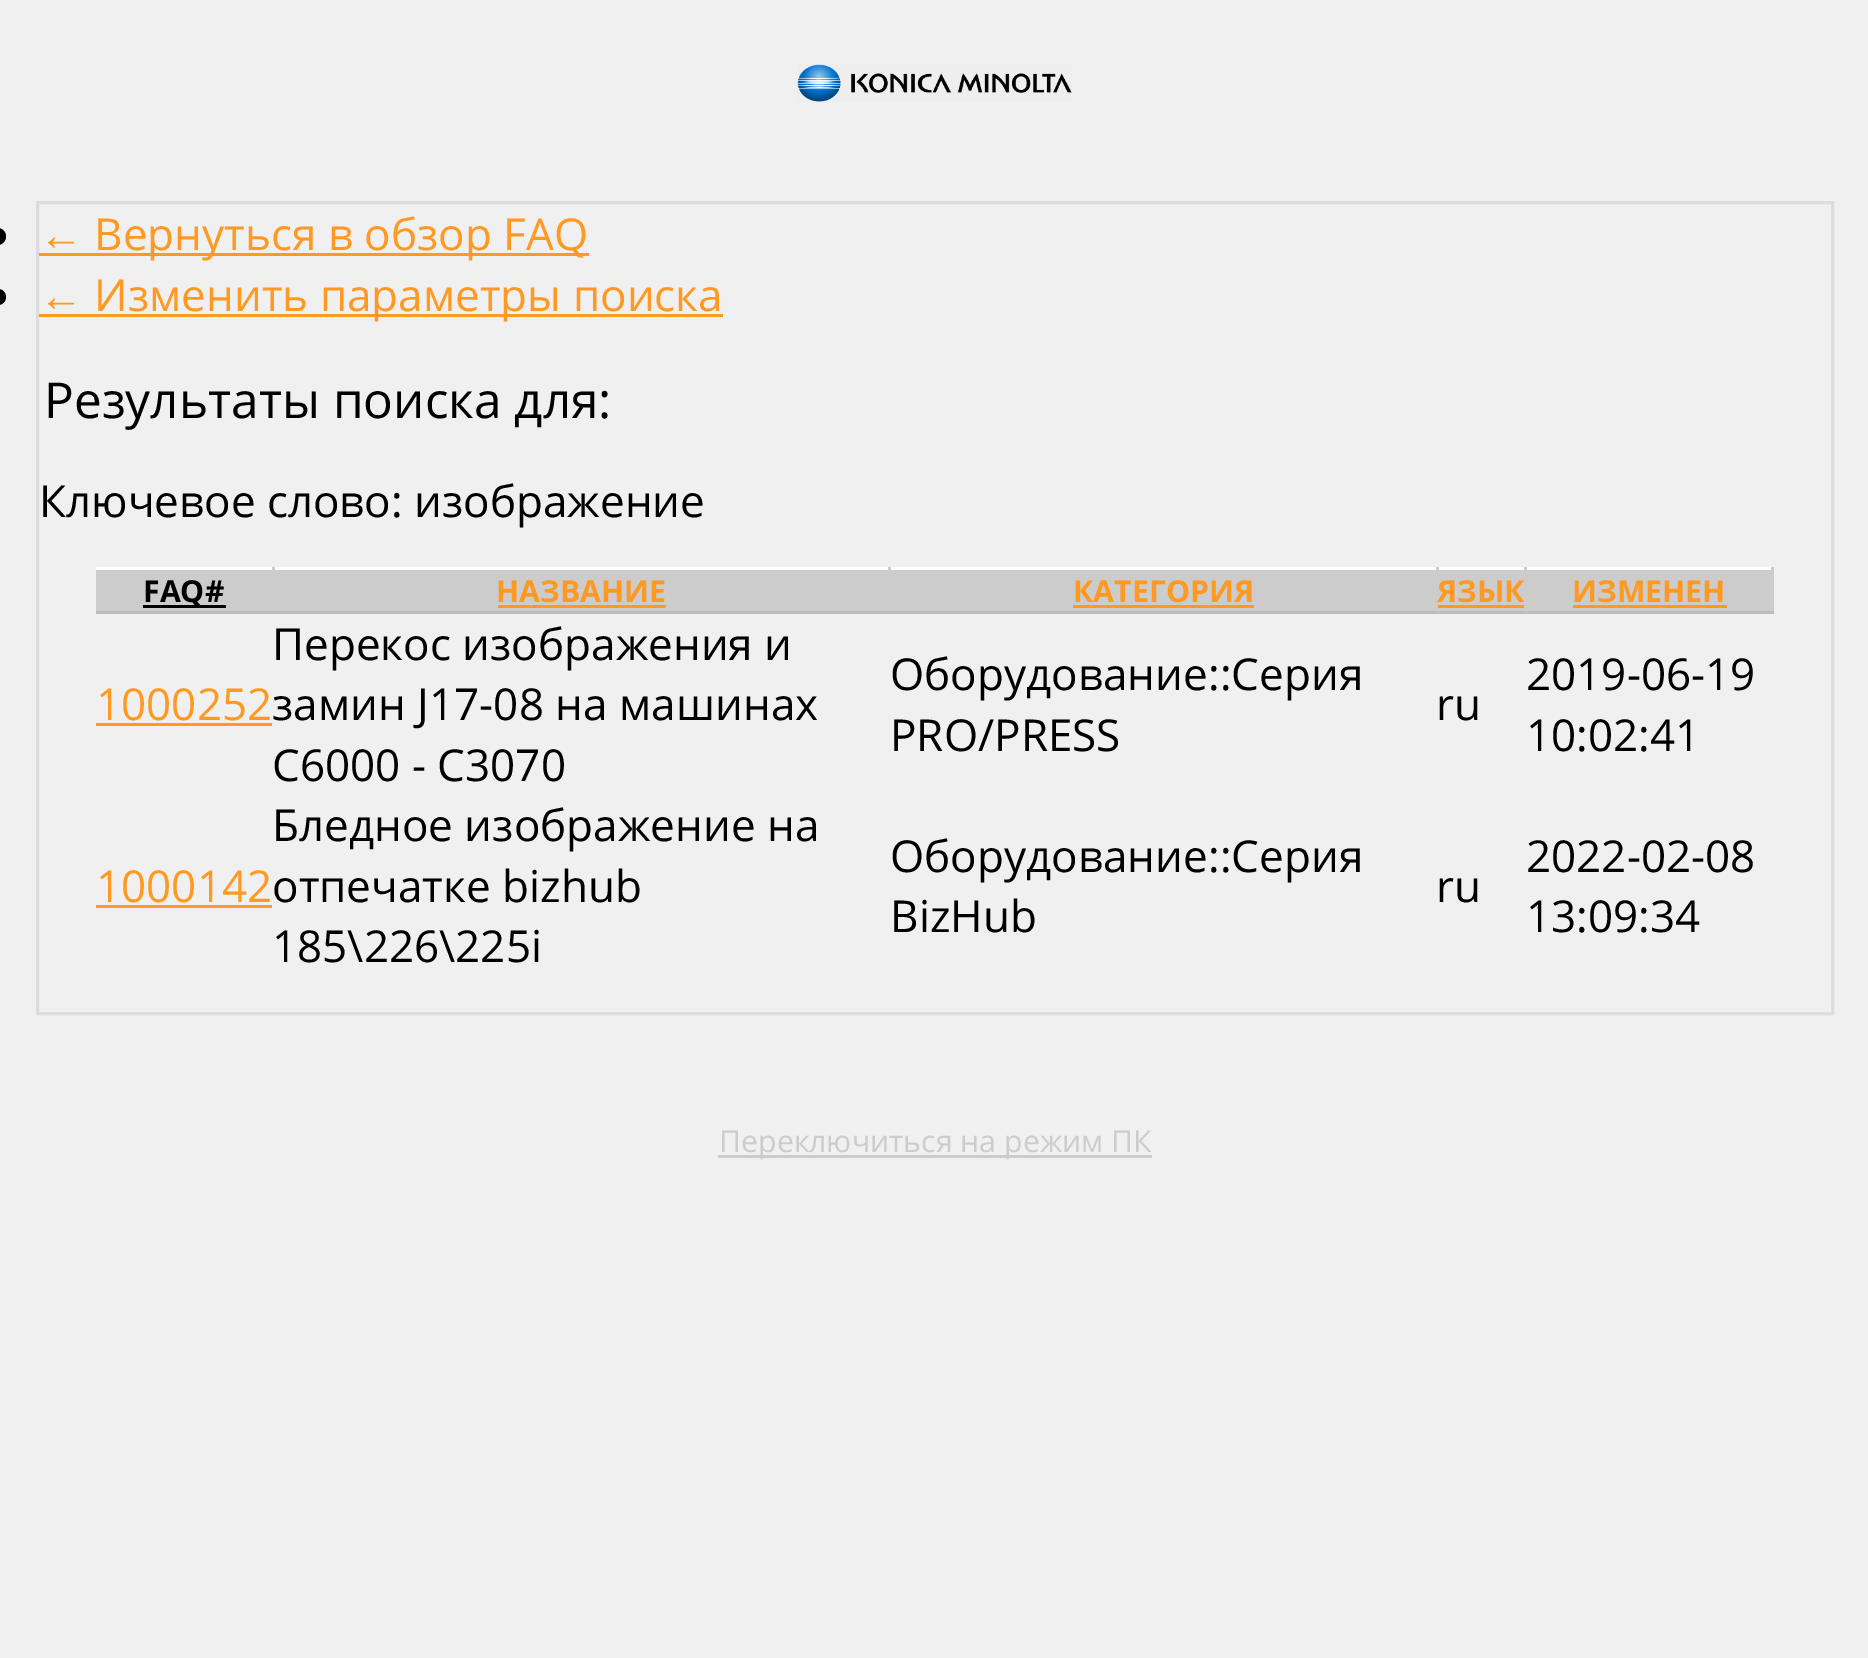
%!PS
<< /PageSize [1868 1658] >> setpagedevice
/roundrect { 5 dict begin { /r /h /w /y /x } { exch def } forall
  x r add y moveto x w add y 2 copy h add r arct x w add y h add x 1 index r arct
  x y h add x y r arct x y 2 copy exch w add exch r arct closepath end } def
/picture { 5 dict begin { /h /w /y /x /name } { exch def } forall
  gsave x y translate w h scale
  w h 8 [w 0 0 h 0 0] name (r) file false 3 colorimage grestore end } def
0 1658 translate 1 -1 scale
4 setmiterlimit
0.941 setgray
0 0 1868 1658 rectfill
(img1.rgb) 797 64 275 38 picture
0.867 setgray
3 setlinewidth
37.5 202.5 1795 811 rectstroke
0 setgray
-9 228 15 17 8.5 roundrect fill
/LiberationSans-Regular [44 0 0 -44 0 0] selectfont
1 0.6 0.133 setrgbcolor
39 250 moveto (←) show
39 253 550 3 rectfill
/OpenSans-Regular [44 0 0 -44 0 0] selectfont
94 250 moveto (Вернуться в обзор FAQ) show
0 setgray
-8 289 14 16 8 roundrect fill
/LiberationSans-Regular [44 0 0 -44 0 0] selectfont
1 0.6 0.133 setrgbcolor
39 311 moveto (←) show
39 314 684 3 rectfill
/OpenSans-Regular [44 0 0 -44 0 0] selectfont
94 311 moveto (Изменить параметры поиска) show
/OpenSans-Regular [49.5 0 0 -49.5 0 0] selectfont
0 setgray
44 418 moveto (Результаты поиска для:) show
/OpenSans-Regular [44 0 0 -44 0 0] selectfont
39 517 moveto (Ключевое слово: изображение) show
0.8 setgray
96 570 1675 41 rectfill
1 setgray
96 567 1678 3 rectfill
0.8 setgray
1771 567 3 46 rectfill
0.733 setgray
1524 611 250 3 rectfill
0.8 setgray
1524 567 3 46 rectfill
0.733 setgray
1436 611 90 3 rectfill
0.8 setgray
1436 567 3 46 rectfill
0.733 setgray
888 611 550 3 rectfill
0.8 setgray
888 567 3 46 rectfill
0.733 setgray
272 611 619 3 rectfill
0.8 setgray
272 567 3 46 rectfill
0.733 setgray
96 611 179 3 rectfill
0 setgray
143 605 83 3 rectfill
/OpenSans-Bold [30.25 0 0 -30.25 0 0] selectfont
143 602 moveto (FAQ#) show
1 0.6 0.133 setrgbcolor
496 602 moveto (НАЗВАНИЕ) show
498 605 168 3 rectfill
1073 602 moveto (КАТЕГОРИЯ) show
1073 605 181 3 rectfill
1437 602 moveto (ЯЗЫК) show
1438 605 86 3 rectfill
1572 602 moveto (ИЗМЕНЕН) show
1573 605 154 3 rectfill
/OpenSans-Regular [44 0 0 -44 0 0] selectfont
96 720 moveto (1000252) show
96 723 176 3 rectfill
0 setgray
272 660 moveto (Перекос изображения и) show
272 720 moveto (замин J17-08 на машинах) show
272 781 moveto (C6000 - C3070) show
890 690 moveto (Оборудование::Серия) show
890 751 moveto (PRO/PRESS) show
1436 720 moveto (ru) show
1526 690 moveto (2019-06-19) show
1526 751 moveto (10:02:41) show
1 0.6 0.133 setrgbcolor
96 902 moveto (1000142) show
96 905 176 3 rectfill
0 setgray
272 841 moveto (Бледное изображение на) show
272 902 moveto (отпечатке bizhub) show
272 962 moveto (185\\226\\225i) show
890 872 moveto (Оборудование::Серия) show
890 932 moveto (BizHub) show
1436 902 moveto (ru) show
1526 872 moveto (2022-02-08) show
1526 932 moveto (13:09:34) show
0.8 setgray
718 1155 434 3 rectfill
/OpenSans-Regular [30.25 0 0 -30.25 0 0] selectfont
719 1152 moveto (Переключиться на режим ПК) show
showpage
